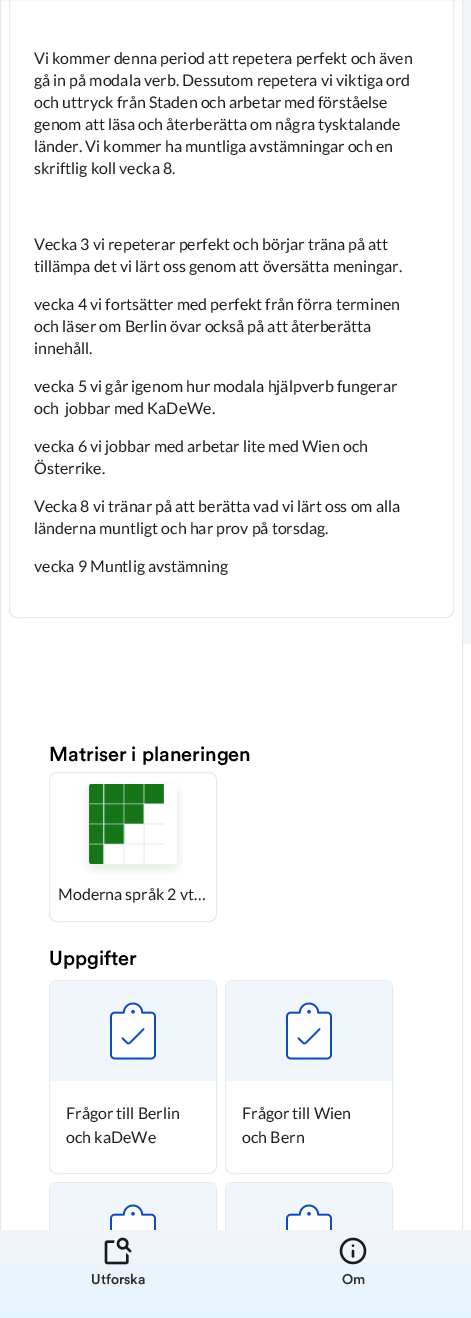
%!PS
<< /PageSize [471 1318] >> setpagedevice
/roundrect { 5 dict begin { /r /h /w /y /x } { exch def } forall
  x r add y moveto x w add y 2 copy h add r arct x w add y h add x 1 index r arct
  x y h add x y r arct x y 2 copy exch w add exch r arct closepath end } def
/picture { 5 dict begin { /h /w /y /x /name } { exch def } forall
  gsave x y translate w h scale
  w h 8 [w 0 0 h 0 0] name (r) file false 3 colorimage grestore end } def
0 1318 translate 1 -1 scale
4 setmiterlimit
1 setgray
0 0 471 1318 rectfill
0.953 0.961 0.976 setrgbcolor
463 0 8 644 rectfill
0.902 0.914 0.941 setrgbcolor
0.5 -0.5 462 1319 rectstroke
9.5 -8.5 444 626 7.5 roundrect stroke
/Lato-Regular [16 0 0 -16 0 0] selectfont
0.122 0.129 0.141 setrgbcolor
34 64 moveto (Vi kommer denna period att repetera perfekt och även) show
34 86 moveto (gå in på modala verb. Dessutom repetera vi viktiga ord) show
34 108 moveto (och uttryck från Staden och arbetar med förståelse) show
34 130 moveto (genom att läsa och återberätta om några tysktalande) show
34 152 moveto (länder. Vi kommer ha muntliga avstämningar och en) show
34 174 moveto (skriftlig koll vecka 8.) show
34 250 moveto (Vecka 3 vi repeterar perfekt och börjar träna på att) show
34 272 moveto (tillämpa det vi lärt oss genom att översätta meningar.) show
34 310 moveto (vecka 4 vi fortsätter med perfekt från förra terminen) show
34 332 moveto (och läser om Berlin övar också på att återberätta) show
34 354 moveto (innehåll.) show
34 392 moveto (vecka 5 vi går igenom hur modala hjälpverb fungerar) show
34 414 moveto (och  jobbar med KaDeWe.) show
34 452 moveto (vecka 6 vi jobbar med arbetar lite med Wien och) show
34 474 moveto (Österrike.) show
34 512 moveto (Vecka 8 vi tränar på att berätta vad vi lärt oss om alla) show
34 534 moveto (länderna muntligt och har prov på torsdag.) show
34 572 moveto (vecka 9 Muntlig avstämning) show
/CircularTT-Medium [20 0 0 -20 0 0] selectfont
0 setgray
49 761 moveto (Matriser i planeringen) show
0.902 0.914 0.941 setrgbcolor
49.5 772.5 167 149 7.5 roundrect stroke
(img1.rgb) 83 781 100 94 picture
/Lato-Regular [16 0 0 -16 0 0] selectfont
0.122 0.129 0.141 setrgbcolor
58 900 moveto (Moderna språk 2 vt…) show
/CircularTT-Medium [20 0 0 -20 0 0] selectfont
0 setgray
49 965 moveto (Uppgifter) show
0.902 0.914 0.941 setrgbcolor
49.5 980.5 167 193 7.5 roundrect stroke
0.945 0.965 0.992 setrgbcolor
50 981 166 100 rectfill
(img2.rgb) 110 1002 46 58 picture
/Lato-Regular [16 0 0 -16 0 0] selectfont
0.122 0.129 0.141 setrgbcolor
66 1119 moveto (Frågor till Berlin) show
66 1143 moveto (och kaDeWe) show
0.902 0.914 0.941 setrgbcolor
225.5 980.5 167 193 7.5 roundrect stroke
0.945 0.965 0.992 setrgbcolor
226 981 166 100 rectfill
(img2.rgb) 286 1002 46 58 picture
0.122 0.129 0.141 setrgbcolor
242 1119 moveto (Frågor till Wien) show
242 1143 moveto (och Bern) show
0.902 0.914 0.941 setrgbcolor
49.5 1182.5 167 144 7.5 roundrect stroke
0.945 0.965 0.992 setrgbcolor
50 1183 166 47 rectfill
(img3.rgb) 110 1204 46 26 picture
0.902 0.914 0.941 setrgbcolor
225.5 1182.5 167 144 7.5 roundrect stroke
0.945 0.965 0.992 setrgbcolor
226 1183 166 47 rectfill
(img3.rgb) 286 1204 46 26 picture
gsave newpath 0 1230 moveto 471 1230 lineto 471 1318 lineto 0 1318 lineto closepath clip newpath
<< /ShadingType 2 /ColorSpace /DeviceRGB /Coords [236 1230 236 1318] /Extend [true true] /Function << /FunctionType 2 /Domain [0 1] /C0 [0.953 0.961 0.976] /C1 [0.894 0.957 1] /N 1 >> >> shfill grestore
(img4.rgb) 104 1237 28 28 picture
/CircularTT-Medium [14 0 0 -14 0 0] selectfont
0.165 0.173 0.18 setrgbcolor
91 1284 moveto (Utforska) show
(img5.rgb) 339 1237 28 28 picture
342 1284 moveto (Om) show
showpage
